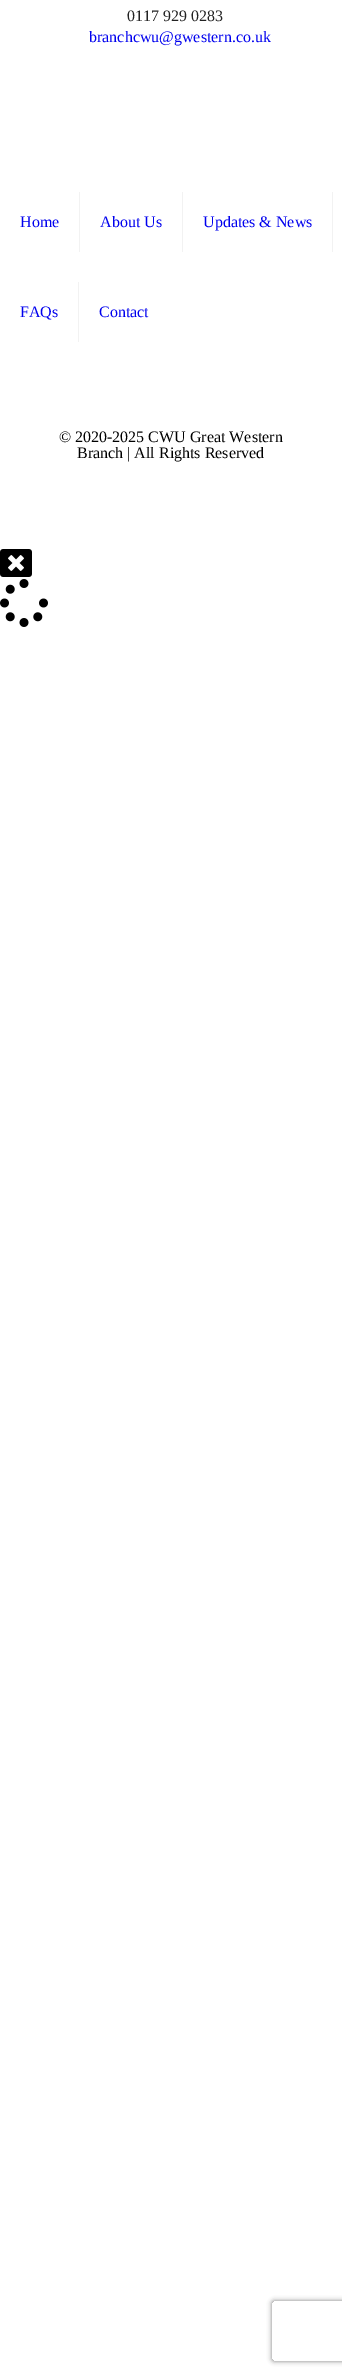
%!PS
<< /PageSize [342 2375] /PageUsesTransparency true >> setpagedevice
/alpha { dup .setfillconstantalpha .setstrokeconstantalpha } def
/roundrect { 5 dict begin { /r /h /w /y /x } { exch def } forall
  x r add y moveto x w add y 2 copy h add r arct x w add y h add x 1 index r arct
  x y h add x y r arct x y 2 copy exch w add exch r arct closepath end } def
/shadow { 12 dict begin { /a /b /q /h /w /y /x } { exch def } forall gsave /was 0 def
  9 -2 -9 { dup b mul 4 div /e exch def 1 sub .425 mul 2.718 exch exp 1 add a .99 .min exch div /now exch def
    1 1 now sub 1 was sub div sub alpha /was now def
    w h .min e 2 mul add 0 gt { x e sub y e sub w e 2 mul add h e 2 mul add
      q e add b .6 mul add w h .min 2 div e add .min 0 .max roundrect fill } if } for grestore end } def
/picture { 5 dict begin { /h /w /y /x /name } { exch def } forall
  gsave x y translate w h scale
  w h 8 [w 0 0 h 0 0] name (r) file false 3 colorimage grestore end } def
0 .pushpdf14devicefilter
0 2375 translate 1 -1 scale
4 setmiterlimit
1 setgray
0 0 342 2375 rectfill
/LiberationSerif-Regular [16 0 0 -16 0 0] selectfont
0.133 setgray
127 21 moveto (0117 929 0283) show
0 0 0.933 setrgbcolor
89 42 moveto (branchcwu@gwestern.co.uk) show
0.949 setgray
79 192 1 60 rectfill
0 0 0.933 setrgbcolor
20 227 moveto (Home) show
0.949 setgray
182 192 1 60 rectfill
0 0 0.933 setrgbcolor
100 227 moveto (About Us) show
0.949 setgray
332 192 1 60 rectfill
0 0 0.933 setrgbcolor
203 227 moveto (Updates & News) show
0.949 setgray
78 282 1 60 rectfill
0 0 0.933 setrgbcolor
20 317 moveto (FAQs) show
99 317 moveto (Contact) show
0 setgray
59 442 moveto (© 2020-2025 CWU Great Western) show
77 458 moveto (Branch | All Rights Reserved) show
(img1.rgb) 0 549 32 28 picture
(img2.rgb) 0 579 48 48 picture
gsave
newpath 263 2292 moveto 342 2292 lineto 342 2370 lineto 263 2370 lineto closepath 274 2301 moveto 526 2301 lineto 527 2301 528 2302 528 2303 curveto 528 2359 lineto 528 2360 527 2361 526 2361 curveto 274 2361 lineto 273 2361 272 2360 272 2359 curveto 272 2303 lineto 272 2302 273 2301 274 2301 curveto closepath eoclip newpath
0.502 setgray
272 2301 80 60 2 2.5 1 shadow
grestore
.poppdf14devicefilter showpage
